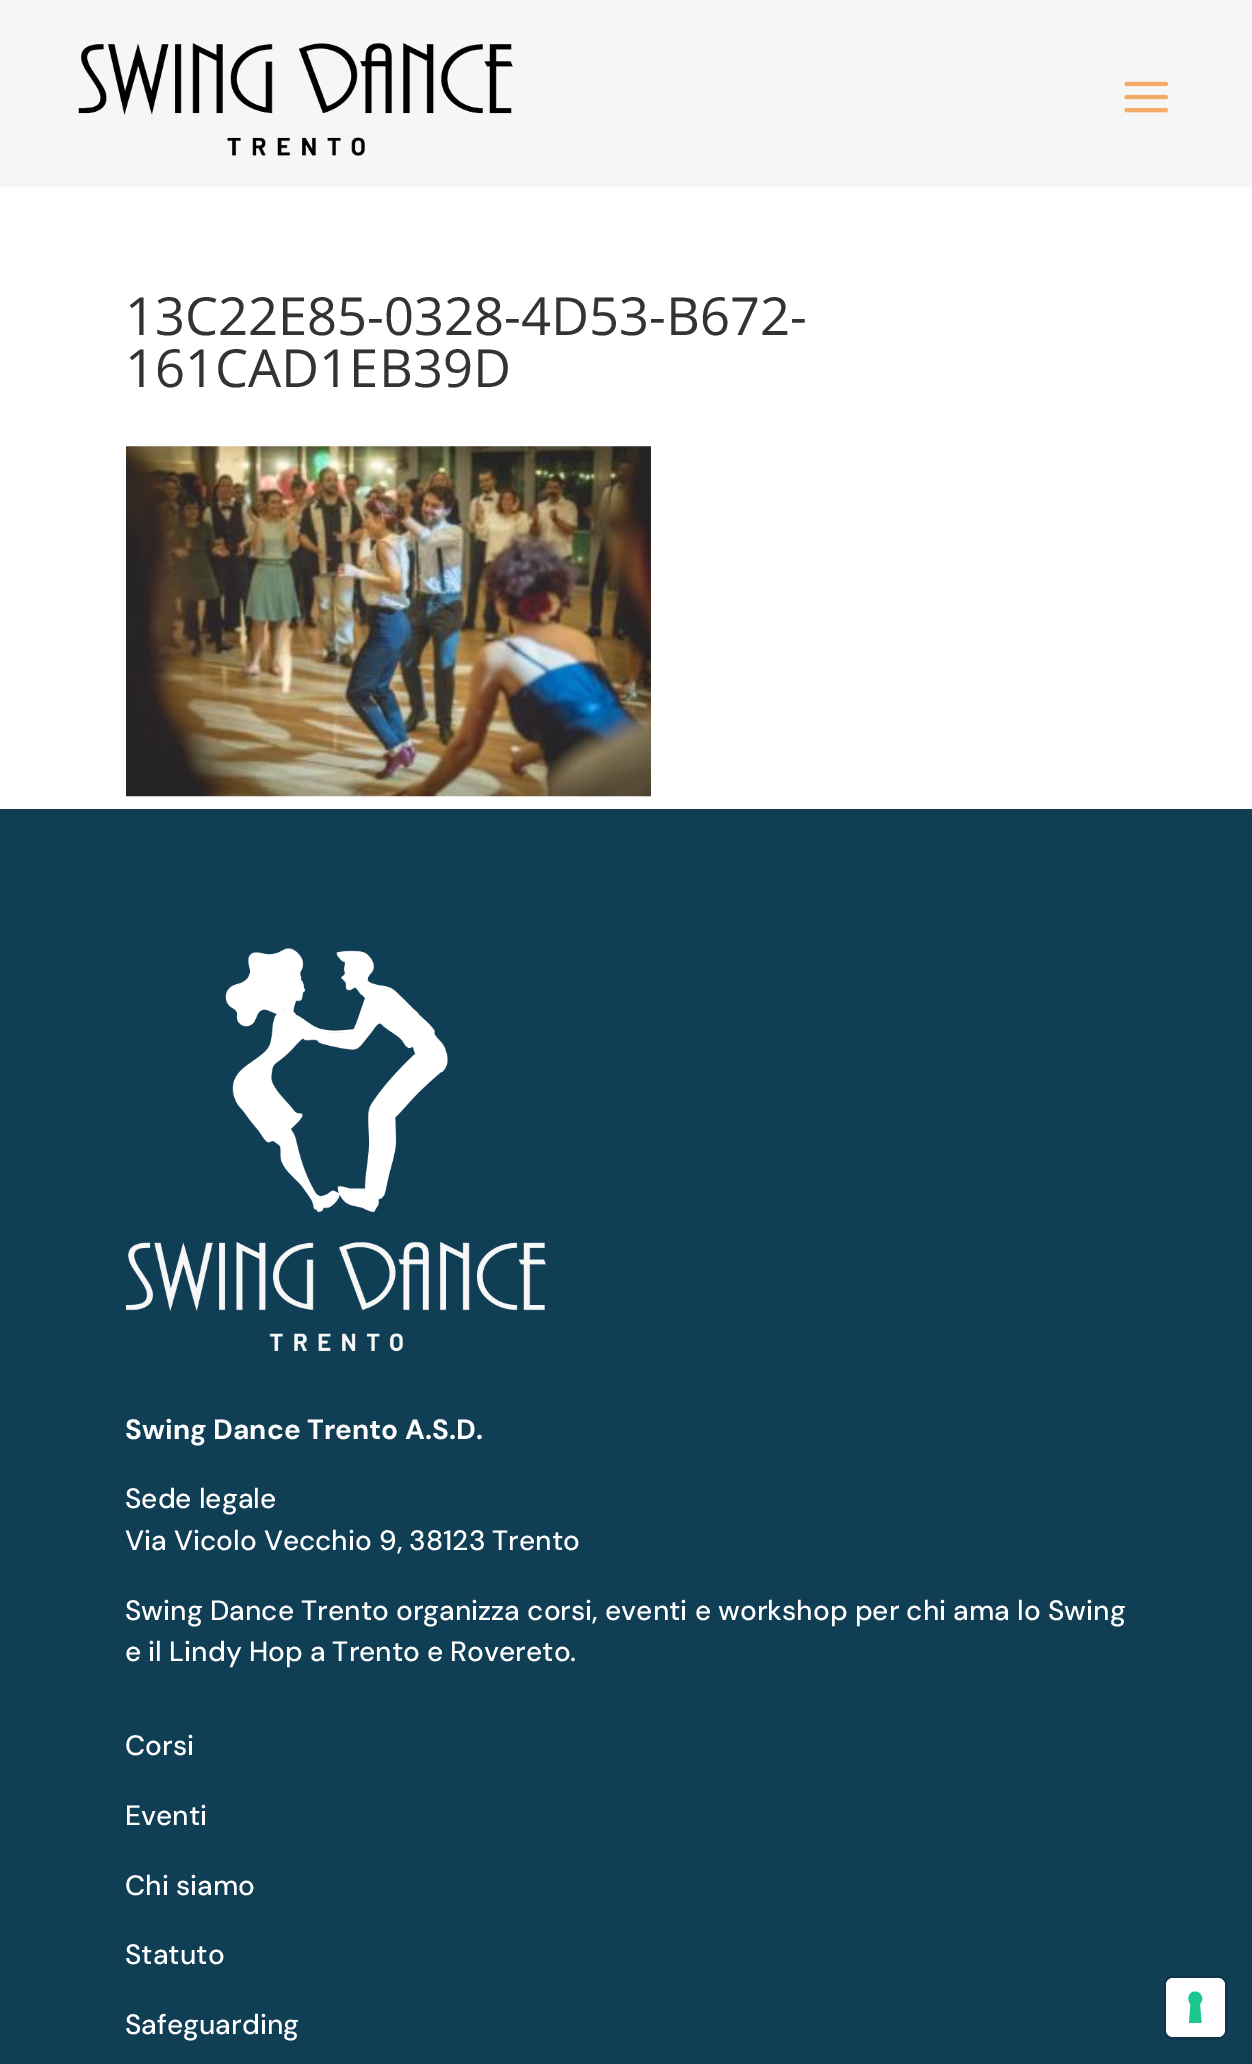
%!PS
<< /PageSize [1252 2064] >> setpagedevice
/roundrect { 5 dict begin { /r /h /w /y /x } { exch def } forall
  x r add y moveto x w add y 2 copy h add r arct x w add y h add x 1 index r arct
  x y h add x y r arct x y 2 copy exch w add exch r arct closepath end } def
/picture { 5 dict begin { /h /w /y /x /name } { exch def } forall
  gsave x y translate w h scale
  w h 8 [w 0 0 h 0 0] name (r) file false 3 colorimage grestore end } def
0 2064 translate 1 -1 scale
4 setmiterlimit
1 setgray
0 0 1252 2064 rectfill
0.965 setgray
0 0 1252 187 rectfill
(img1.rgb) 78 42 435 114 picture
(img2.rgb) 1124 81 45 32 picture
/OpenSans-Regular [52.5 0 0 -52.5 0 0] selectfont
0.2 setgray
125 335 moveto (13C22E85-0328-4D53-B672-) show
125 387 moveto (161CAD1EB39D) show
(img3.rgb) 126 446 525 351 picture
0.063 0.243 0.333 setrgbcolor
0 809 1252 1255 rectfill
(img4.rgb) 126 948 420 404 picture
/DMSans-Bold [28 0 0 -28 0 0] selectfont
1 setgray
125 1439 moveto (Swing Dance Trento A.S.D.) show
/DMSans-Medium [28 0 0 -28 0 0] selectfont
125 1508 moveto (Sede legale) show
125 1550 moveto (Via Vicolo Vecchio 9, 38123 Trento) show
125 1620 moveto (Swing Dance Trento organizza corsi, eventi e workshop per chi ama lo Swing) show
125 1661 moveto (e il Lindy Hop a Trento e Rovereto.) show
125 1755 moveto (Corsi) show
125 1825 moveto (Eventi) show
125 1895 moveto (Chi siamo) show
125 1964 moveto (Statuto) show
125 2034 moveto (Safeguarding) show
0.055 0.208 0.282 setrgbcolor
2 setlinewidth
1165 1977 61 61 8 roundrect stroke
1 setgray
1166 1978 59 59 7 roundrect fill
0.11 0.776 0.569 setrgbcolor
newpath 1195 1991.5 moveto 1201.5 1991.5 1204.5 1999.5 1200 2004 curveto 1201.5 2023 lineto 1189 2023 lineto 1190.5 2004 lineto 1186 1999.5 1189 1991.5 1195 1991.5 curveto closepath eofill
showpage
